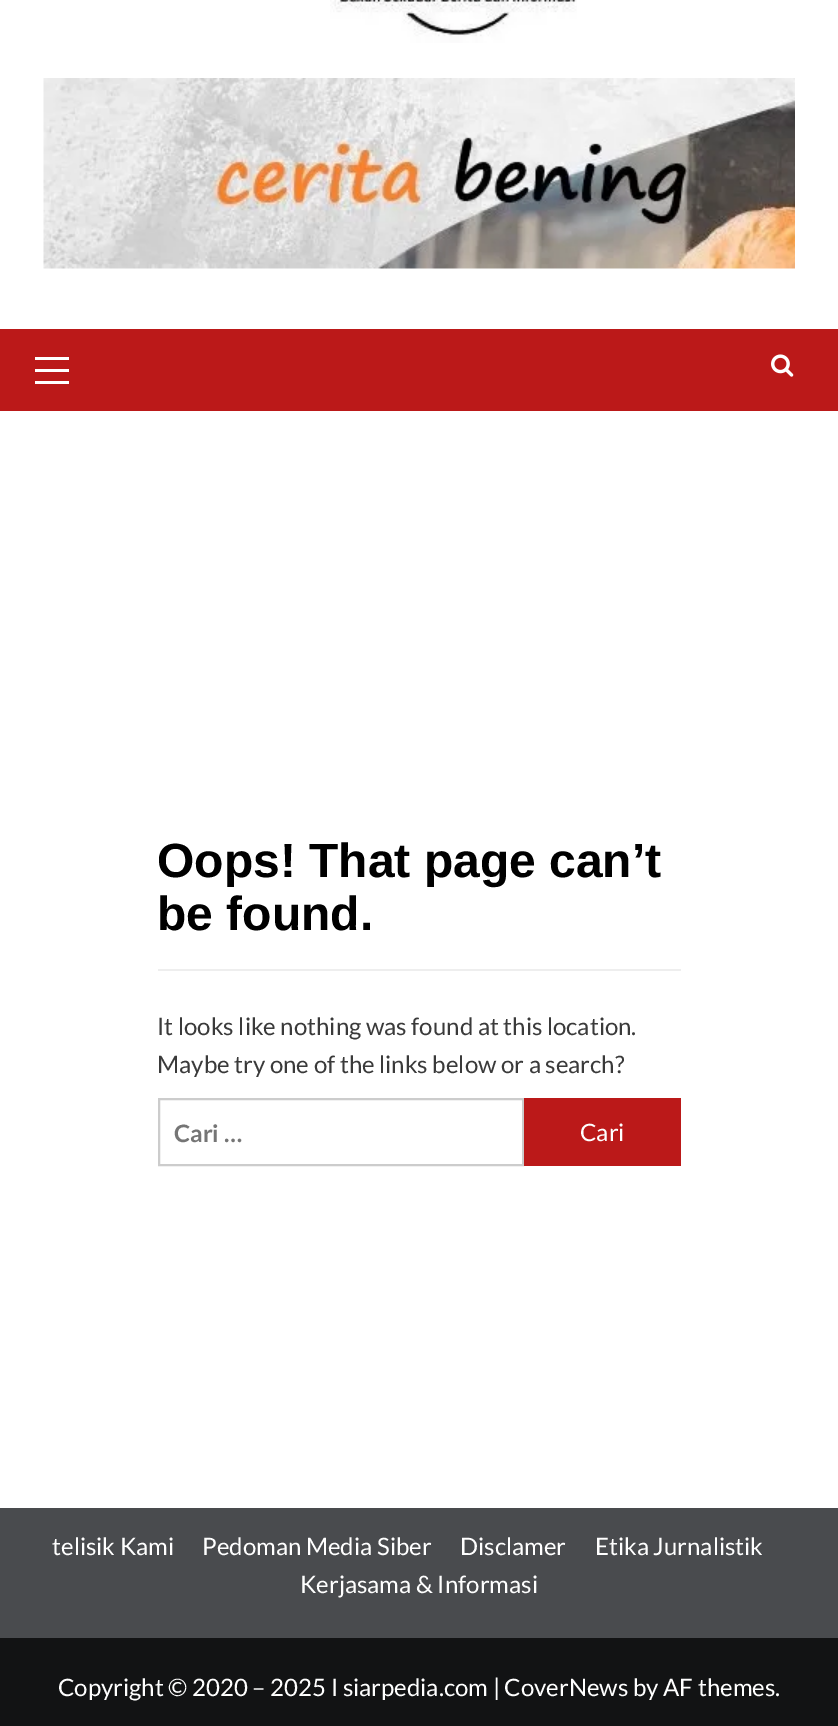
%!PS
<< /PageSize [838 1726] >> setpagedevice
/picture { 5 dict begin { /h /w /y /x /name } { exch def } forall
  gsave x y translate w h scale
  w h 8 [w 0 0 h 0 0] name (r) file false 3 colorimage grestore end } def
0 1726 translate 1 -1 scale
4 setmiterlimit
1 setgray
0 0 838 1726 rectfill
(img1.rgb) 330 0 247 43 picture
(img2.rgb) 43 78 752 191 picture
0.733 0.098 0.098 setrgbcolor
0 329 838 82 rectfill
1 setgray
35 369 34 3 rectfill
35 357 34 3 rectfill
35 381 34 3 rectfill
(img3.rgb) 771 354 23 23 picture
0.933 setgray
158 969 523 2 rectfill
/LiberationSans-Bold [48 0 0 -48 0 0] selectfont
0 setgray
157 877 moveto (Oops! That page can’t) show
157 930 moveto (be found.) show
/Lato-Regular [24 0 0 -24 0 0] selectfont
0.227 setgray
157 1035 moveto (It looks like nothing was found at this location.) show
157 1073 moveto (Maybe try one of the links below or a search?) show
0.8 setgray
2 setlinewidth
159 1099 364 66 rectstroke
/Lato-Bold [24 0 0 -24 0 0] selectfont
0.459 setgray
174 1142 moveto (Cari …) show
0.733 0.098 0.098 setrgbcolor
524 1098 157 68 rectfill
/Lato-Regular [24 0 0 -24 0 0] selectfont
1 setgray
580 1141 moveto (Cari) show
0.286 0.294 0.306 setrgbcolor
0 1508 838 130 rectfill
1 setgray
52 1555 moveto (telisik Kami) show
202 1555 moveto (Pedoman Media Siber) show
460 1555 moveto (Disclamer) show
595 1555 moveto (Etika Jurnalistik) show
300 1593 moveto (Kerjasama & Informasi) show
0.071 0.075 0.078 setrgbcolor
0 1638 838 88 rectfill
1 setgray
58 1696 moveto (Copyright © 2020 – 2025 I siarpedia.com | CoverNews by AF themes.) show
showpage
